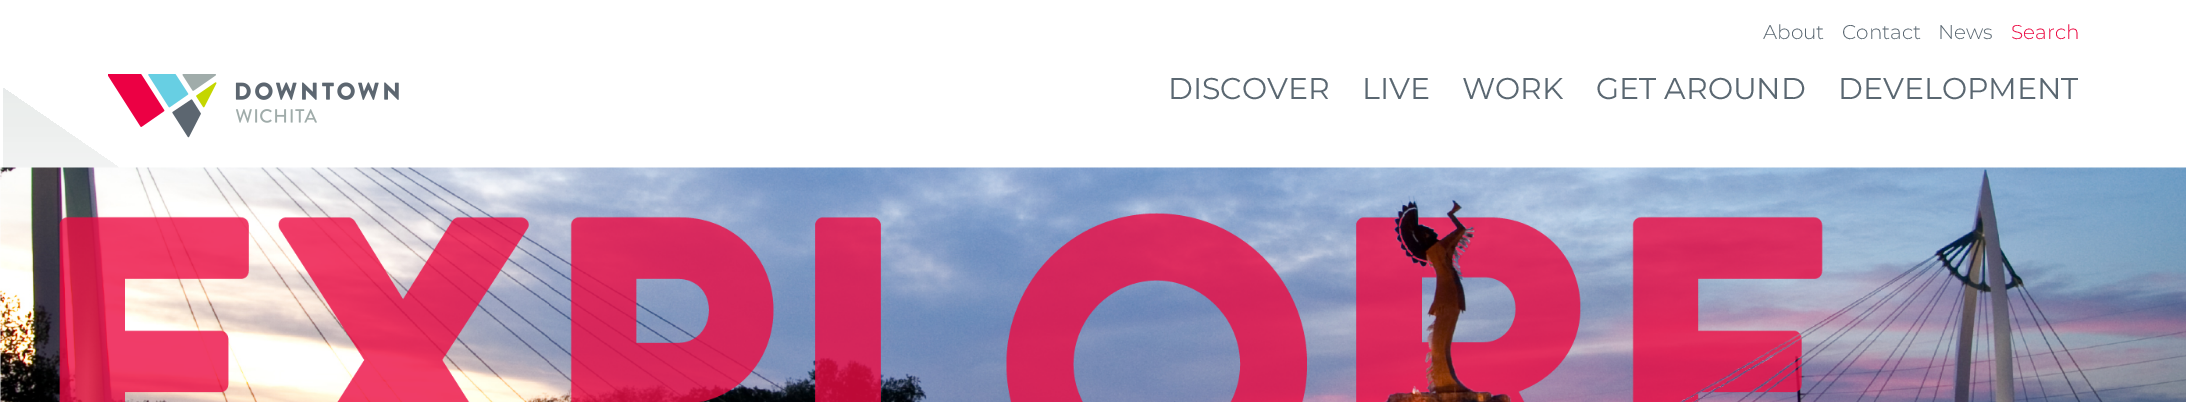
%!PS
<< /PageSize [2186 402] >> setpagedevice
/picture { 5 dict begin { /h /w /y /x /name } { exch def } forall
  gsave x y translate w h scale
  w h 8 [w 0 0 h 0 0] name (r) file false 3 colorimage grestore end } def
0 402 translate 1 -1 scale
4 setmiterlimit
1 setgray
0 0 2186 402 rectfill
gsave newpath 3 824 moveto 2027 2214 lineto 2027 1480 lineto 3 88 lineto closepath clip newpath
<< /ShadingType 2 /ColorSpace /DeviceRGB /Coords [1015 82 1015 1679] /Extend [true true] /Function << /FunctionType 3 /Domain [0 1] /Functions [<< /FunctionType 2 /Domain [0 1] /C0 [0.906 0.918 0.918] /C1 [0.918 0.929 0.925] /N 1 >> << /FunctionType 2 /Domain [0 1] /C0 [0.918 0.929 0.925] /C1 [0.937 0.945 0.941] /N 1 >> << /FunctionType 2 /Domain [0 1] /C0 [0.937 0.945 0.941] /C1 [0.953 0.957 0.957] /N 1 >> << /FunctionType 2 /Domain [0 1] /C0 [0.953 0.957 0.957] /C1 [0.965 0.969 0.969] /N 1 >> << /FunctionType 2 /Domain [0 1] /C0 [0.965 0.969 0.969] /C1 [0.973 0.976 0.976] /N 1 >> << /FunctionType 2 /Domain [0 1] /C0 [0.973 0.976 0.976] /C1 [0.98 0.98 0.98] /N 1 >> << /FunctionType 2 /Domain [0 1] /C0 [0.98 0.98 0.98] /C1 [0.98 0.984 0.984] /N 1 >> << /FunctionType 2 /Domain [0 1] /C0 [0.98 0.984 0.984] /C1 [0.984 0.984 0.984] /N 1 >> << /FunctionType 2 /Domain [0 1] /C0 [0.984 0.984 0.984] /C1 [0.973 0.976 0.976] /N 1 >> << /FunctionType 2 /Domain [0 1] /C0 [0.973 0.976 0.976] /C1 [0.973 0.976 0.976] /N 1 >> << /FunctionType 2 /Domain [0 1] /C0 [0.973 0.976 0.976] /C1 [0.98 0.98 0.98] /N 1 >> << /FunctionType 2 /Domain [0 1] /C0 [0.98 0.98 0.98] /C1 [0.988 0.988 0.988] /N 1 >> << /FunctionType 2 /Domain [0 1] /C0 [0.988 0.988 0.988] /C1 [0.992 0.996 0.992] /N 1 >> << /FunctionType 2 /Domain [0 1] /C0 [0.992 0.996 0.992] /C1 [1 1 0.996] /N 1 >> << /FunctionType 2 /Domain [0 1] /C0 [1 1 0.996] /C1 [1 1 1] /N 1 >>] /Bounds [0.01 0.04 0.06 0.09 0.13 0.18 0.24 0.41 0.5 0.59 0.68 0.77 0.85 0.93] /Encode [0 1 0 1 0 1 0 1 0 1 0 1 0 1 0 1 0 1 0 1 0 1 0 1 0 1 0 1 0 1] >> >> shfill grestore
/Montserrat-Light [20 0 0 -20 0 0] selectfont
0.353 0.404 0.443 setrgbcolor
1763 39 moveto (About) show
1842 39 moveto (Contact) show
1938 39 moveto (News) show
0.925 0.043 0.263 setrgbcolor
2011 39 moveto (Search) show
(img1.rgb) 108 74 291 64 picture
/Montserrat-Regular [30 0 0 -30 0 0] selectfont
0.353 0.404 0.443 setrgbcolor
1168 99 moveto (DISCOVER) show
1362 99 moveto (LIVE) show
1462 99 moveto (WORK) show
1596 99 moveto (GET AROUND) show
1838 99 moveto (DEVELOPMENT) show
(img2.rgb) 0 167 2186 235 picture
showpage
